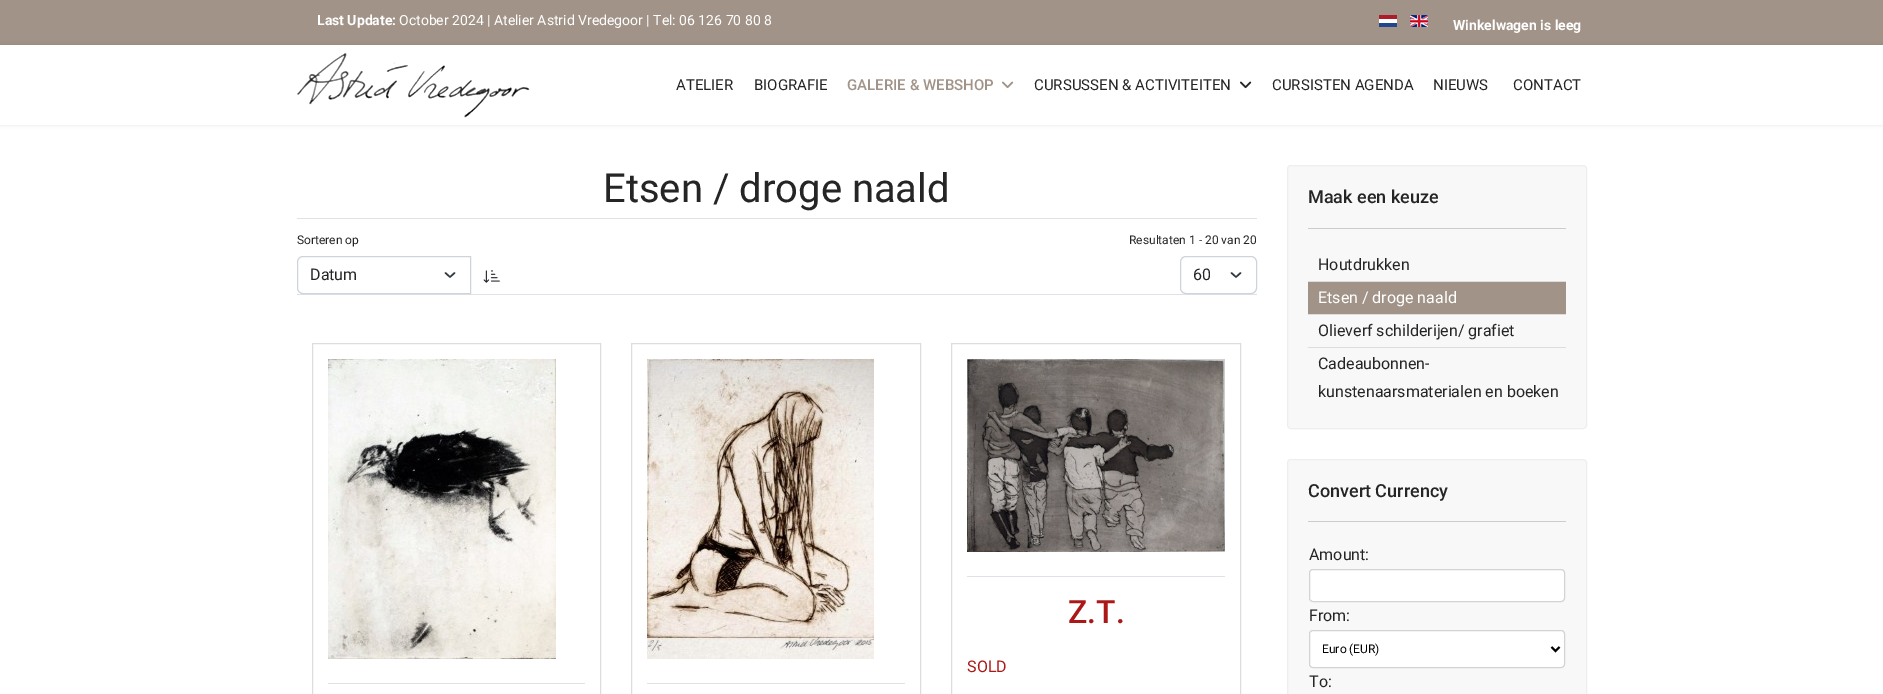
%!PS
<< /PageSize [1883 694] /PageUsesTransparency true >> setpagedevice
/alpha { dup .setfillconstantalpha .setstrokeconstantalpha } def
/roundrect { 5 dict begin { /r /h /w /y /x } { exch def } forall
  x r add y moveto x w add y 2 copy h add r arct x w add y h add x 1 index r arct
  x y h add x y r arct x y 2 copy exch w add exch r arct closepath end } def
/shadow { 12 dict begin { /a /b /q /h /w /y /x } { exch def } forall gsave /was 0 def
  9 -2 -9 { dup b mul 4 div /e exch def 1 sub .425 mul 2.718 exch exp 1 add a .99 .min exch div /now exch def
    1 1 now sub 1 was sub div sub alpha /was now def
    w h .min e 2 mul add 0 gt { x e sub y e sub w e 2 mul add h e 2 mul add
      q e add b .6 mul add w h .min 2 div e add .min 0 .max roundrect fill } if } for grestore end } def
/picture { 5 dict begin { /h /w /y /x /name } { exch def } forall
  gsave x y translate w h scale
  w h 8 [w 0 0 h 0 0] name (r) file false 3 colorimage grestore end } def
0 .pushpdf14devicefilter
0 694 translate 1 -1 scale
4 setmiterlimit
1 setgray
0 0 1883 694 rectfill
0.631 0.576 0.529 setrgbcolor
0 0 1883 45 rectfill
/Roboto-Bold [14 0 0 -14 0 0] selectfont
1 setgray
317 25 moveto (Last Update:) show
/Roboto-Regular [14 0 0 -14 0 0] selectfont
399 25 moveto (October 2024 | Atelier Astrid Vredegoor | Tel: 06 126 70 80 8) show
(img1.rgb) 1379 15 18 12 picture
(img2.rgb) 1410 15 18 12 picture
/Roboto-Bold [14 0 0 -14 0 0] selectfont
1453 30 moveto (Winkelwagen is leeg) show
gsave
newpath 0 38 moveto 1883 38 lineto 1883 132 lineto 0 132 lineto closepath 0 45 moveto 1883 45 lineto 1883 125 lineto 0 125 lineto closepath eoclip newpath
0 setgray
0 45 1883 80 0 2 0.1 shadow
grestore
(img3.rgb) 297 53 233 65 picture
/Roboto-Regular [15 0 0 -15 0 0] selectfont
0.145 setgray
676 90 moveto (ATELIER) show
754 90 moveto (BIOGRAFIE) show
/Roboto-Medium [15 0 0 -15 0 0] selectfont
0.631 0.576 0.529 setrgbcolor
847 90 moveto (GALERIE & WEBSHOP) show
(img4.rgb) 1002 81 12 8 picture
/Roboto-Regular [15 0 0 -15 0 0] selectfont
0.145 setgray
1034 90 moveto (CURSUSSEN & ACTIVITEITEN) show
(img5.rgb) 1240 81 12 8 picture
1272 90 moveto (CURSISTEN AGENDA) show
1433 90 moveto (NIEUWS) show
1513 90 moveto (CONTACT) show
/Roboto-Regular [40 0 0 -40 0 0] selectfont
603 202 moveto (Etsen / droge naald) show
0.871 0.886 0.902 setrgbcolor
297 218 960 1 rectfill
297 294 960 1 rectfill
/Roboto-Regular [12 0 0 -12 0 0] selectfont
0.145 setgray
297 244 moveto (Sorteren op) show
0.204 0.227 0.251 setrgbcolor
1.5 setlinewidth
1 setlinecap
1 setlinejoin
newpath 445.5 273 moveto 450 277 lineto 454.5 273 lineto stroke
0.808 0.831 0.855 setrgbcolor
1 setlinewidth
0 setlinecap
0 setlinejoin
newpath 303 256.5 moveto 470.5 256.5 lineto 470.5 293.5 lineto 303 293.5 lineto 300 293.5 297.5 291 297.5 288 curveto 297.5 262 lineto 297.5 259 300 256.5 303 256.5 curveto closepath stroke
/Roboto-Regular [16 0 0 -16 0 0] selectfont
0.145 setgray
310 280 moveto (Datum) show
(img6.rgb) 483 270 17 13 picture
/Roboto-Regular [12 0 0 -12 0 0] selectfont
1129 244 moveto (Resultaten 1 - 20 van 20) show
0.204 0.227 0.251 setrgbcolor
1.5 setlinewidth
1 setlinecap
1 setlinejoin
newpath 1231.5 273 moveto 1236 277 lineto 1240.5 273 lineto stroke
0.808 0.831 0.855 setrgbcolor
1 setlinewidth
0 setlinecap
0 setlinejoin
1180.5 256.5 76 37 5.5 roundrect stroke
/Roboto-Regular [16 0 0 -16 0 0] selectfont
0.145 setgray
1193 280 moveto (60) show
0.867 setgray
312.5 343.5 288 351 rectstroke
(img7.rgb) 328 359 228 300 picture
0.871 0.886 0.902 setrgbcolor
328 683 257 1 rectfill
0.867 setgray
631.5 343.5 289 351 rectstroke
(img8.rgb) 647 359 227 300 picture
0.871 0.886 0.902 setrgbcolor
647 683 258 1 rectfill
0.867 setgray
951.5 343.5 289 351 rectstroke
(img9.rgb) 967 359 258 193 picture
0.871 0.886 0.902 setrgbcolor
967 576 258 1 rectfill
/Roboto-Medium [32 0 0 -32 0 0] selectfont
0.667 0.094 0.094 setrgbcolor
1068 623 moveto (Z.T.) show
/Roboto-Regular [16 0 0 -16 0 0] selectfont
967 672 moveto (SOLD) show
0.973 setgray
1287.5 165.5 299 263 3.5 roundrect gsave fill grestore
0.933 setgray
stroke
0.8 setgray
1308 228 258 1 rectfill
/Roboto-Medium [18 0 0 -18 0 0] selectfont
0.145 setgray
1308 203 moveto (Maak een keuze) show
0.867 setgray
1308 281 258 1 rectfill
/Roboto-Regular [16 0 0 -16 0 0] selectfont
0.145 setgray
1318 270 moveto (Houtdrukken) show
0.867 setgray
1308 314 258 1 rectfill
0.631 0.576 0.529 setrgbcolor
1308 282 258 32 rectfill
1 setgray
1318 303 moveto (Etsen / droge naald) show
0.867 setgray
1308 347 258 1 rectfill
0.145 setgray
1318 336 moveto (Olieverf schilderijen/ grafiet) show
1318 369 moveto (Cadeaubonnen-) show
1318 397 moveto (kunstenaarsmaterialen en boeken) show
0.973 setgray
1287.5 459.5 299 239 3.5 roundrect gsave fill grestore
0.933 setgray
stroke
0.8 setgray
1308 521 258 1 rectfill
/Roboto-Medium [18 0 0 -18 0 0] selectfont
0.145 setgray
1308 497 moveto (Convert Currency) show
/Roboto-Regular [16 0 0 -16 0 0] selectfont
1309 560 moveto (Amount:) show
1 setgray
1309.5 569.5 255 32 3.5 roundrect gsave fill grestore
0.827 setgray
stroke
0.145 setgray
1309 621 moveto (From:) show
1 setgray
1309.5 630.5 255 37 3.5 roundrect gsave fill grestore
0.827 setgray
stroke
0 setgray
2 setlinewidth
newpath 1551.5 647 moveto 1555.5 651 lineto 1559.5 647 lineto stroke
/Roboto-Regular [12 0 0 -12 0 0] selectfont
1322 653 moveto (Euro \(EUR\)) show
/Roboto-Regular [16 0 0 -16 0 0] selectfont
0.145 setgray
1309 687 moveto (To:) show
.poppdf14devicefilter showpage
